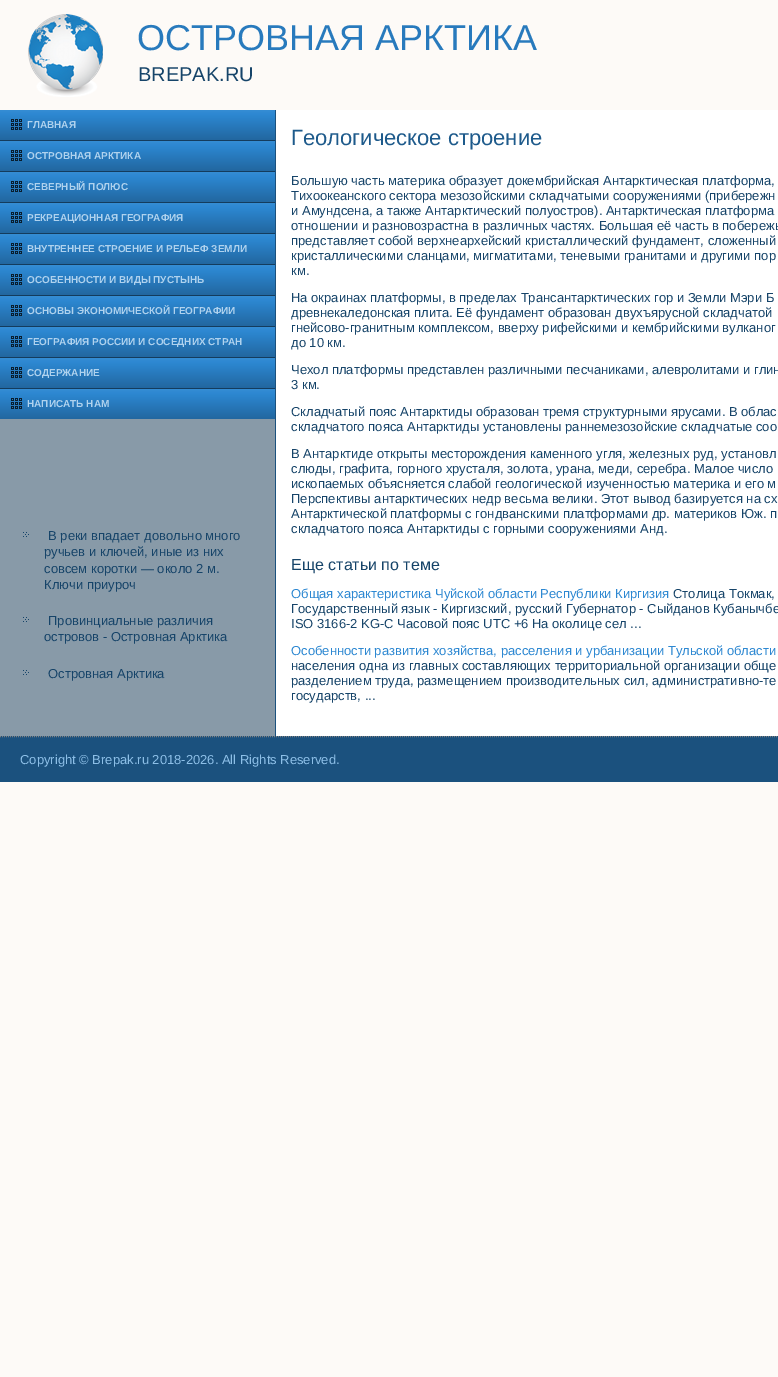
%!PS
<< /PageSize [778 1377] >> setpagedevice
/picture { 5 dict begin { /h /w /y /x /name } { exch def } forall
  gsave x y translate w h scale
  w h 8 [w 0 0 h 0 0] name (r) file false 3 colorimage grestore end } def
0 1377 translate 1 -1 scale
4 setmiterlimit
0.992 0.98 0.969 setrgbcolor
0 0 778 1377 rectfill
(img1.rgb) 28 14 75 83 picture
/LiberationSans-Regular [36 0 0 -36 0 0] selectfont
0.157 0.478 0.741 setrgbcolor
137 50 moveto (ОСТРОВНАЯ АРКТИКА) show
/LiberationSans-Regular [20 0 0 -20 0 0] selectfont
0.086 0.267 0.412 setrgbcolor
138 81 moveto (BREPAK.RU) show
1 setgray
276 110 502 626 rectfill
0.533 0.604 0.659 setrgbcolor
0 419 275 317 rectfill
0.106 0.318 0.494 setrgbcolor
275 110 1 626 rectfill
gsave newpath 0 110 moveto 275 110 lineto 275 140 lineto 0 140 lineto closepath clip newpath
<< /ShadingType 2 /ColorSpace /DeviceRGB /Coords [138 110 138 140] /Extend [true true] /Function << /FunctionType 3 /Domain [0 1] /Functions [<< /FunctionType 2 /Domain [0 1] /C0 [0.208 0.553 0.831] /C1 [0.176 0.533 0.824] /N 1 >> << /FunctionType 2 /Domain [0 1] /C0 [0.176 0.533 0.824] /C1 [0.133 0.404 0.627] /N 1 >>] /Bounds [0.14] /Encode [0 1 0 1] >> >> shfill grestore
(img2.rgb) 11 119 11 11 picture
/LiberationSans-Bold [10 0 0 -10 0 0] selectfont
0.686 0.824 0.933 setrgbcolor
27 128 moveto (ГЛАВНАЯ) show
0.078 0.235 0.365 setrgbcolor
0 140 275 1 rectfill
gsave newpath 0 141 moveto 275 141 lineto 275 171 lineto 0 171 lineto closepath clip newpath
<< /ShadingType 2 /ColorSpace /DeviceRGB /Coords [138 141 138 171] /Extend [true true] /Function << /FunctionType 3 /Domain [0 1] /Functions [<< /FunctionType 2 /Domain [0 1] /C0 [0.208 0.553 0.831] /C1 [0.176 0.533 0.824] /N 1 >> << /FunctionType 2 /Domain [0 1] /C0 [0.176 0.533 0.824] /C1 [0.133 0.404 0.627] /N 1 >>] /Bounds [0.14] /Encode [0 1 0 1] >> >> shfill grestore
(img2.rgb) 11 150 11 11 picture
0.686 0.824 0.933 setrgbcolor
27 159 moveto (ОСТРОВНАЯ АРКТИКА) show
0.078 0.235 0.365 setrgbcolor
0 171 275 1 rectfill
gsave newpath 0 172 moveto 275 172 lineto 275 202 lineto 0 202 lineto closepath clip newpath
<< /ShadingType 2 /ColorSpace /DeviceRGB /Coords [138 172 138 202] /Extend [true true] /Function << /FunctionType 3 /Domain [0 1] /Functions [<< /FunctionType 2 /Domain [0 1] /C0 [0.208 0.553 0.831] /C1 [0.176 0.533 0.824] /N 1 >> << /FunctionType 2 /Domain [0 1] /C0 [0.176 0.533 0.824] /C1 [0.133 0.404 0.627] /N 1 >>] /Bounds [0.14] /Encode [0 1 0 1] >> >> shfill grestore
(img2.rgb) 11 181 11 11 picture
0.686 0.824 0.933 setrgbcolor
27 190 moveto (СЕВЕРНЫЙ ПОЛЮС) show
0.078 0.235 0.365 setrgbcolor
0 202 275 1 rectfill
gsave newpath 0 203 moveto 275 203 lineto 275 233 lineto 0 233 lineto closepath clip newpath
<< /ShadingType 2 /ColorSpace /DeviceRGB /Coords [138 203 138 233] /Extend [true true] /Function << /FunctionType 3 /Domain [0 1] /Functions [<< /FunctionType 2 /Domain [0 1] /C0 [0.208 0.553 0.831] /C1 [0.176 0.533 0.824] /N 1 >> << /FunctionType 2 /Domain [0 1] /C0 [0.176 0.533 0.824] /C1 [0.133 0.404 0.627] /N 1 >>] /Bounds [0.14] /Encode [0 1 0 1] >> >> shfill grestore
(img2.rgb) 11 212 11 11 picture
0.686 0.824 0.933 setrgbcolor
27 221 moveto (РЕКРЕАЦИОННАЯ ГЕОГРАФИЯ) show
0.078 0.235 0.365 setrgbcolor
0 233 275 1 rectfill
gsave newpath 0 234 moveto 275 234 lineto 275 264 lineto 0 264 lineto closepath clip newpath
<< /ShadingType 2 /ColorSpace /DeviceRGB /Coords [138 234 138 264] /Extend [true true] /Function << /FunctionType 3 /Domain [0 1] /Functions [<< /FunctionType 2 /Domain [0 1] /C0 [0.208 0.553 0.831] /C1 [0.176 0.533 0.824] /N 1 >> << /FunctionType 2 /Domain [0 1] /C0 [0.176 0.533 0.824] /C1 [0.133 0.404 0.627] /N 1 >>] /Bounds [0.14] /Encode [0 1 0 1] >> >> shfill grestore
(img2.rgb) 11 243 11 11 picture
0.686 0.824 0.933 setrgbcolor
27 252 moveto (ВНУТРЕННЕЕ СТРОЕНИЕ И РЕЛЬЕФ ЗЕМЛИ) show
0.078 0.235 0.365 setrgbcolor
0 264 275 1 rectfill
gsave newpath 0 265 moveto 275 265 lineto 275 295 lineto 0 295 lineto closepath clip newpath
<< /ShadingType 2 /ColorSpace /DeviceRGB /Coords [138 265 138 295] /Extend [true true] /Function << /FunctionType 3 /Domain [0 1] /Functions [<< /FunctionType 2 /Domain [0 1] /C0 [0.208 0.553 0.831] /C1 [0.176 0.533 0.824] /N 1 >> << /FunctionType 2 /Domain [0 1] /C0 [0.176 0.533 0.824] /C1 [0.133 0.404 0.627] /N 1 >>] /Bounds [0.14] /Encode [0 1 0 1] >> >> shfill grestore
(img2.rgb) 11 274 11 11 picture
0.686 0.824 0.933 setrgbcolor
27 283 moveto (ОСОБЕННОСТИ И ВИДЫ ПУСТЫНЬ) show
0.078 0.235 0.365 setrgbcolor
0 295 275 1 rectfill
gsave newpath 0 296 moveto 275 296 lineto 275 326 lineto 0 326 lineto closepath clip newpath
<< /ShadingType 2 /ColorSpace /DeviceRGB /Coords [138 296 138 326] /Extend [true true] /Function << /FunctionType 3 /Domain [0 1] /Functions [<< /FunctionType 2 /Domain [0 1] /C0 [0.208 0.553 0.831] /C1 [0.176 0.533 0.824] /N 1 >> << /FunctionType 2 /Domain [0 1] /C0 [0.176 0.533 0.824] /C1 [0.133 0.404 0.627] /N 1 >>] /Bounds [0.14] /Encode [0 1 0 1] >> >> shfill grestore
(img2.rgb) 11 305 11 11 picture
0.686 0.824 0.933 setrgbcolor
27 314 moveto (ОСНОВЫ ЭКОНОМИЧЕСКОЙ ГЕОГРАФИИ) show
0.078 0.235 0.365 setrgbcolor
0 326 275 1 rectfill
gsave newpath 0 327 moveto 275 327 lineto 275 357 lineto 0 357 lineto closepath clip newpath
<< /ShadingType 2 /ColorSpace /DeviceRGB /Coords [138 327 138 357] /Extend [true true] /Function << /FunctionType 3 /Domain [0 1] /Functions [<< /FunctionType 2 /Domain [0 1] /C0 [0.208 0.553 0.831] /C1 [0.176 0.533 0.824] /N 1 >> << /FunctionType 2 /Domain [0 1] /C0 [0.176 0.533 0.824] /C1 [0.133 0.404 0.627] /N 1 >>] /Bounds [0.14] /Encode [0 1 0 1] >> >> shfill grestore
(img2.rgb) 11 336 11 11 picture
0.686 0.824 0.933 setrgbcolor
27 345 moveto (ГЕОГРАФИЯ РОССИИ И СОСЕДНИХ СТРАН) show
0.078 0.235 0.365 setrgbcolor
0 357 275 1 rectfill
gsave newpath 0 358 moveto 275 358 lineto 275 388 lineto 0 388 lineto closepath clip newpath
<< /ShadingType 2 /ColorSpace /DeviceRGB /Coords [138 358 138 388] /Extend [true true] /Function << /FunctionType 3 /Domain [0 1] /Functions [<< /FunctionType 2 /Domain [0 1] /C0 [0.208 0.553 0.831] /C1 [0.176 0.533 0.824] /N 1 >> << /FunctionType 2 /Domain [0 1] /C0 [0.176 0.533 0.824] /C1 [0.133 0.404 0.627] /N 1 >>] /Bounds [0.14] /Encode [0 1 0 1] >> >> shfill grestore
(img2.rgb) 11 367 11 11 picture
0.686 0.824 0.933 setrgbcolor
27 376 moveto (СОДЕРЖАНИЕ) show
0.078 0.235 0.365 setrgbcolor
0 388 275 1 rectfill
gsave newpath 0 389 moveto 275 389 lineto 275 419 lineto 0 419 lineto closepath clip newpath
<< /ShadingType 2 /ColorSpace /DeviceRGB /Coords [138 389 138 419] /Extend [true true] /Function << /FunctionType 3 /Domain [0 1] /Functions [<< /FunctionType 2 /Domain [0 1] /C0 [0.208 0.553 0.831] /C1 [0.176 0.533 0.824] /N 1 >> << /FunctionType 2 /Domain [0 1] /C0 [0.176 0.533 0.824] /C1 [0.133 0.404 0.627] /N 1 >>] /Bounds [0.14] /Encode [0 1 0 1] >> >> shfill grestore
(img2.rgb) 11 398 11 11 picture
0.686 0.824 0.933 setrgbcolor
27 407 moveto (НАПИСАТЬ НАМ) show
(img3.rgb) 23 532 6 5 picture
/LiberationSans-Regular [13 0 0 -13 0 0] selectfont
0.086 0.267 0.412 setrgbcolor
48 540 moveto (В реки впадает довольно много) show
44 556 moveto (ручьев и ключей, иные из них) show
44 573 moveto (совсем коротки — около 2 м.) show
44 589 moveto (Ключи приуроч) show
(img3.rgb) 23 617 6 5 picture
48 625 moveto (Провинциальные различия) show
44 641 moveto (островов - Островная Арктика) show
(img3.rgb) 23 670 6 5 picture
48 678 moveto (Островная Арктика) show
/LiberationSans-Regular [22 0 0 -22 0 0] selectfont
0.114 0.353 0.545 setrgbcolor
291 145 moveto (Геологическое строение) show
/LiberationSans-Regular [13 0 0 -13 0 0] selectfont
0.086 0.267 0.412 setrgbcolor
291 185 moveto (Большую часть материка образует докембрийская Антарктическая платформа,) show
291 200 moveto (Тихоокеанского сектора мезозойскими складчатыми сооружениями \(прибережн) show
291 215 moveto (и Амундсена, а также Антарктический полуостров\). Антарктическая платформа) show
291 230 moveto (отношении и разновозрастна в различных частях. Большая её часть в побережь) show
291 245 moveto (представляет собой верхнеархейский кристаллический фундамент, сложенный) show
291 260 moveto (кристаллическими сланцами, мигматитами, теневыми гранитами и другими пор) show
291 275 moveto (км.) show
291 302 moveto (На окраинах платформы, в пределах Трансантарктических гор и Земли Мэри Б) show
291 317 moveto (древнекаледонская плита. Её фундамент образован двухъярусной складчатой) show
291 332 moveto (гнейсово-гранитным комплексом, вверху рифейскими и кембрийскими вулканог) show
291 347 moveto (до 10 км.) show
291 374 moveto (Чехол платформы представлен различными песчаниками, алевролитами и глин) show
291 389 moveto (3 км.) show
291 416 moveto (Складчатый пояс Антарктиды образован тремя структурными ярусами. В облас) show
291 431 moveto (складчатого пояса Антарктиды установлены раннемезозойские складчатые соо) show
291 458 moveto (В Антарктиде открыты месторождения каменного угля, железных руд, установл) show
291 473 moveto (слюды, графита, горного хрусталя, золота, урана, меди, серебра. Малое число) show
291 488 moveto (ископаемых объясняется слабой геологической изученностью материка и его м) show
291 503 moveto (Перспективы антарктических недр весьма велики. Этот вывод базируется на сх) show
291 518 moveto (Антарктической платформы с гондванскими платформами др. материков Юж. п) show
291 533 moveto (складчатого пояса Антарктиды с горными сооружениями Анд.) show
/LiberationSans-Regular [16 0 0 -16 0 0] selectfont
291 570 moveto (Еще статьи по теме) show
/LiberationSans-Regular [13 0 0 -13 0 0] selectfont
0.176 0.533 0.824 setrgbcolor
291 598 moveto (Общая характеристика Чуйской области Республики Киргизия) show
0.086 0.267 0.412 setrgbcolor
673 598 moveto (Столица Токмак,) show
291 613 moveto (Государственный язык - Киргизский, русский Губернатор - Сыйданов Кубанычбе) show
291 628 moveto (ISO 3166-2 KG-C Часовой пояс UTC +6 На околице сел ...) show
0.176 0.533 0.824 setrgbcolor
291 655 moveto (Особенности развития хозяйства, расселения и урбанизации Тульской области) show
0.086 0.267 0.412 setrgbcolor
291 670 moveto (населения одна из главных составляющих территориальной организации обще) show
291 685 moveto (разделением труда, размещением производительных сил, административно-те) show
291 700 moveto (государств, ...) show
0.106 0.318 0.494 setrgbcolor
0 736 778 46 rectfill
0.502 setgray
[1 1] 0 setdash
newpath 0 736.5 moveto 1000 736.5 lineto stroke
0.553 0.749 0.906 setrgbcolor
20 764 moveto (Copyright © Brepak.ru 2018-2026. All Rights Reserved.) show
showpage
